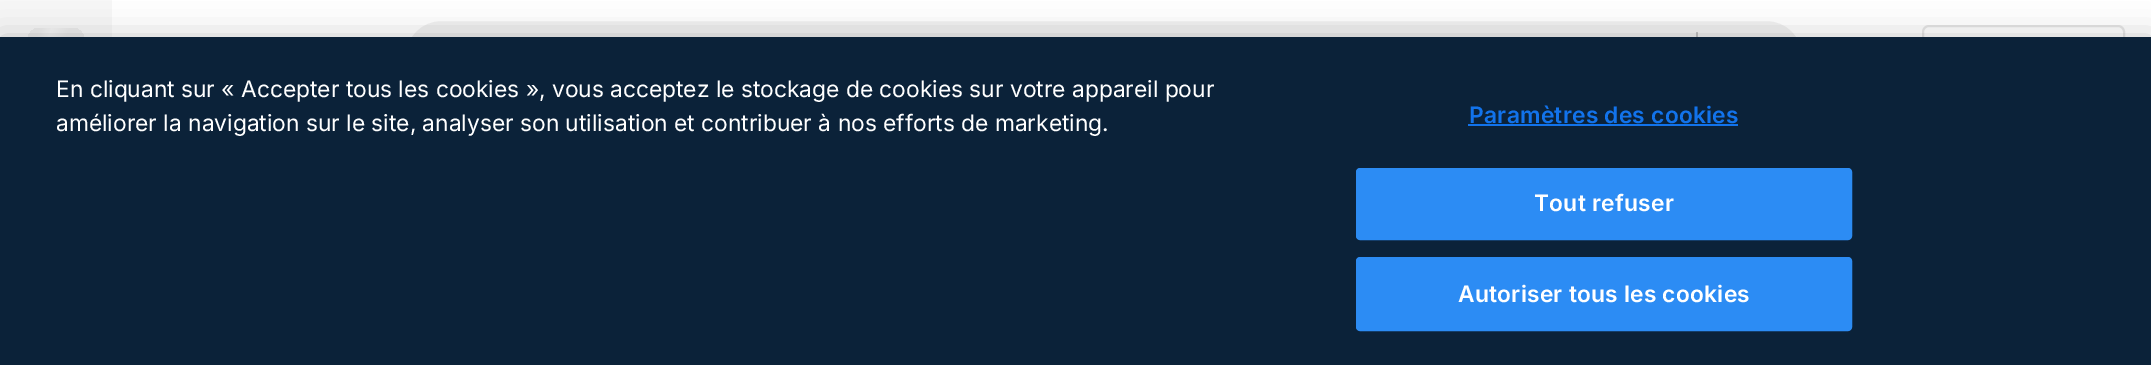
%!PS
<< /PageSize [2151 365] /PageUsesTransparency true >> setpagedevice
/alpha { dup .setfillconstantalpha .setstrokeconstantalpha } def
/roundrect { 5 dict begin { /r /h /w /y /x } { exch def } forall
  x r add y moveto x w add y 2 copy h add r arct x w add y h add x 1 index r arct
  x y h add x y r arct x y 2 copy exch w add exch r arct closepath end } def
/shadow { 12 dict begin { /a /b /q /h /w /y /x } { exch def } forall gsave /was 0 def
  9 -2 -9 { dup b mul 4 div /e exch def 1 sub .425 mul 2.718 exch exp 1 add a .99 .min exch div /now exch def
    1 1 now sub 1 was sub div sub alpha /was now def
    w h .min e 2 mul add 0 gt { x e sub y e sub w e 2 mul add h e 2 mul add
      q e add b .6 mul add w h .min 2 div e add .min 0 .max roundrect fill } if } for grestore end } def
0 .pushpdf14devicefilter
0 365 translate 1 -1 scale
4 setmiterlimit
1 setgray
0 0 2151 365 rectfill
0.969 setgray
0 0 112 37 rectfill
gsave 28 28 56 56 11 roundrect clip newpath
<< /ShadingType 2 /ColorSpace /DeviceRGB /Coords [26 35 142 77] /Extend [true true] /Function << /FunctionType 3 /Domain [0 1] /Functions [<< /FunctionType 2 /Domain [0 1] /C0 [0.925 0.925 0.925] /C1 [0.925 0.925 0.925] /N 1 >> << /FunctionType 2 /Domain [0 1] /C0 [0.925 0.925 0.925] /C1 [0.961 0.961 0.961] /N 1 >> << /FunctionType 2 /Domain [0 1] /C0 [0.961 0.961 0.961] /C1 [0.925 0.925 0.925] /N 1 >> << /FunctionType 2 /Domain [0 1] /C0 [0.925 0.925 0.925] /C1 [0.925 0.925 0.925] /N 1 >>] /Bounds [0.08 0.18 0.33] /Encode [0 1 0 1 0 1 0 1] >> >> shfill grestore
0.941 setgray
405 20 1398 72 36 roundrect gsave fill grestore
1 setgray
2 setlinewidth
stroke
0.765 setgray
1696 32 2 5 rectfill
0.906 setgray
1923 26 201 61 6 roundrect stroke
0 setgray
0 37 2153 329 0 16 0.2 shadow
0.043 0.133 0.224 setrgbcolor
0 37 2151 328 rectfill
/Inter-Regular [22.75 0 0 -22.75 0 0] selectfont
1 setgray
56 97 moveto (En cliquant sur « Accepter tous les cookies », vous acceptez le stockage de cookies sur votre appareil pour) show
56 131 moveto (améliorer la navigation sur le site, analyser son utilisation et contribuer à nos efforts de marketing.) show
/Inter-SemiBold [22.75 0 0 -22.75 0 0] selectfont
0.071 0.451 0.922 setrgbcolor
1469 123 moveto 0.25 0 (Paramètres des cookies) ashow
1468 124 270 2 rectfill
0.173 0.549 0.957 setrgbcolor
1357 169 494 70 3 roundrect gsave fill grestore
stroke
1 setgray
1534 211 moveto 0.25 0 (Tout refuser) ashow
0.173 0.549 0.957 setrgbcolor
1357 258 494 72 3 roundrect gsave fill grestore
stroke
1 setgray
1458 302 moveto 0.25 0 (Autoriser tous les cookies) ashow
.poppdf14devicefilter showpage
